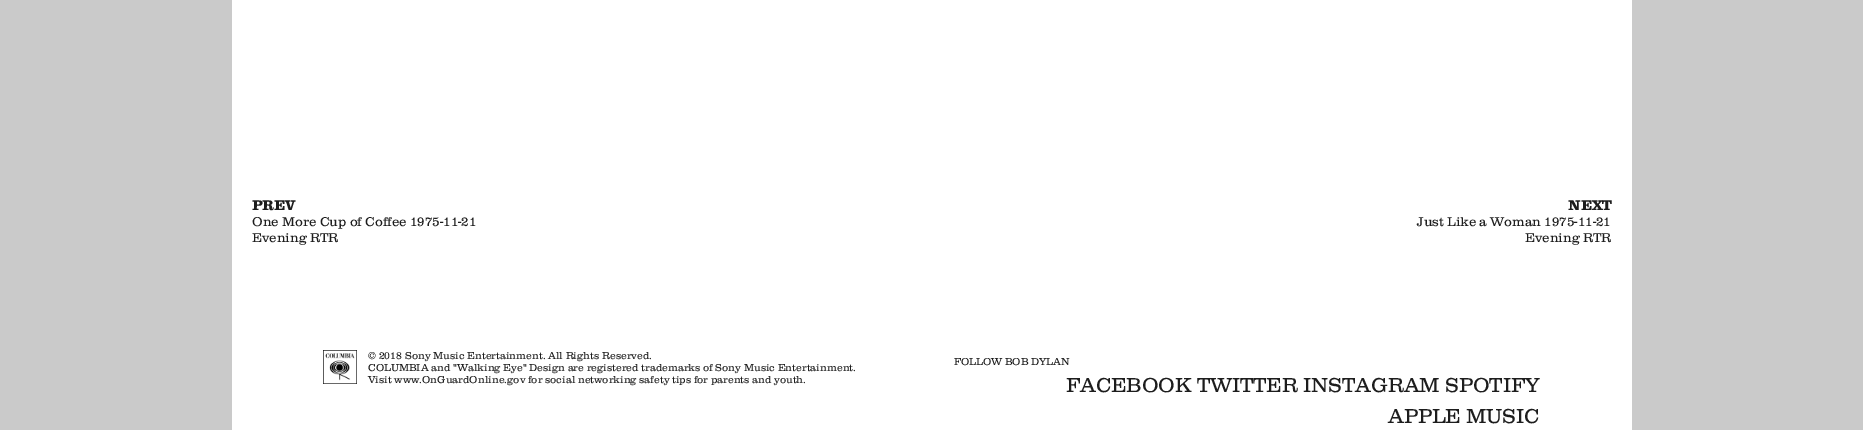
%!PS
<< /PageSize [1863 430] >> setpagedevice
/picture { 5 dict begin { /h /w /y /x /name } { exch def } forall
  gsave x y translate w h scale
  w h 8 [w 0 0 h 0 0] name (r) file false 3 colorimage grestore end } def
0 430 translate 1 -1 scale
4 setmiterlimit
0.792 setgray
0 0 1863 430 rectfill
1 setgray
232 0 1400 430 rectfill
/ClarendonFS-ExtraBold [14.5 0 0 -14.5 0 0] selectfont
0.114 setgray
252 210 moveto (PREV) show
/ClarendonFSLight-Regular [13.25 0 0 -13.25 0 0] selectfont
252 226 moveto (One More Cup of Coffee 1975-11-21) show
252 242 moveto (Evening RTR) show
/ClarendonFS-ExtraBold [14.5 0 0 -14.5 0 0] selectfont
1568 210 moveto (NEXT) show
/ClarendonFSLight-Regular [13.25 0 0 -13.25 0 0] selectfont
1417 226 moveto (Just Like a Woman 1975-11-21) show
1525 242 moveto (Evening RTR) show
(img1.rgb) 323 350 34 34 picture
/ClarendonFSLight-Regular [10.4 0 0 -10.4 0 0] selectfont
368 359 moveto (© 2018 Sony Music Entertainment. All Rights Reserved.) show
368 371 moveto (COLUMBIA and "Walking Eye" Design are registered trademarks of Sony Music Entertainment.) show
368 383 moveto (Visit www.OnGuardOnline.gov for social networking safety tips for parents and youth.) show
954 365 moveto (FOLLOW BOB DYLAN) show
/ClarendonFSLight-Regular [20.8 0 0 -20.8 0 0] selectfont
1066 392 moveto (FACEBOOK TWITTER INSTAGRAM SPOTIFY) show
1388 423 moveto (APPLE MUSIC) show
showpage
